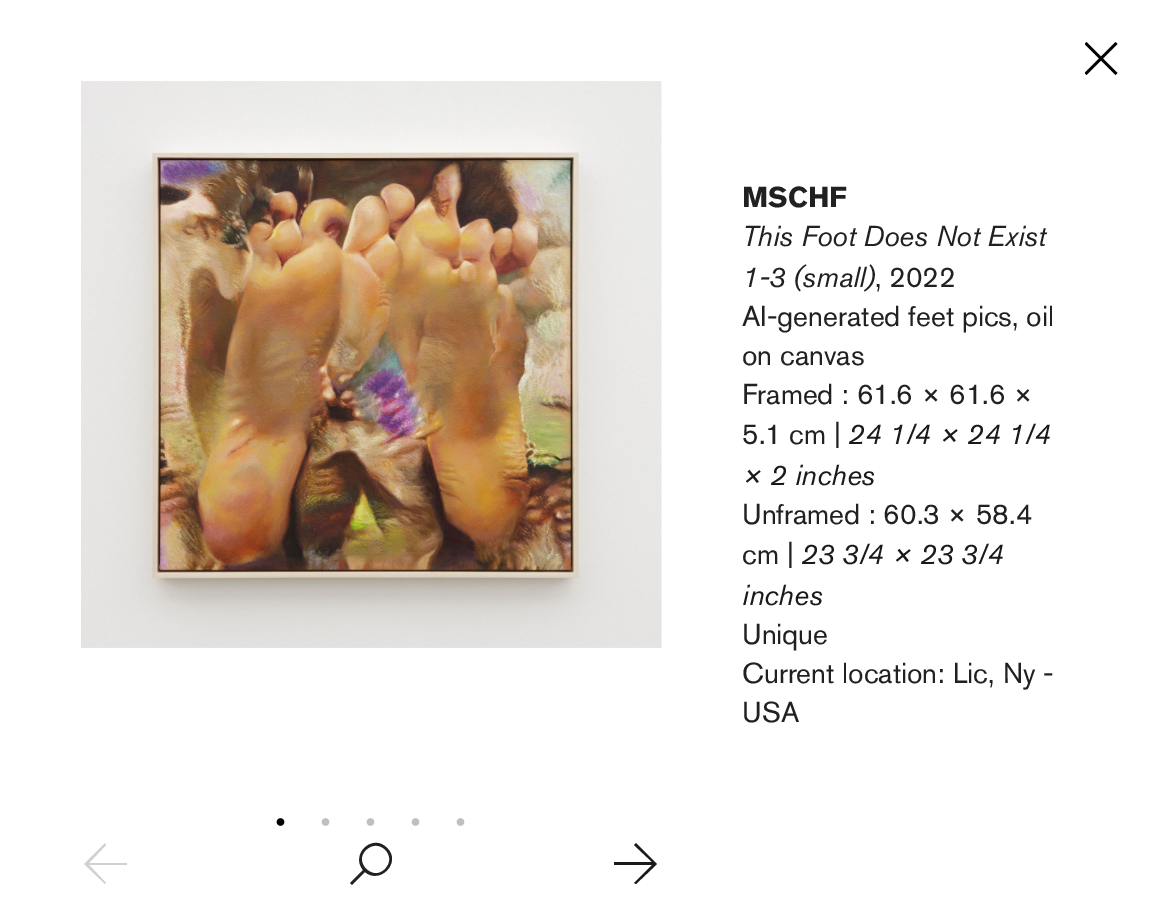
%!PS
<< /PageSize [1153 912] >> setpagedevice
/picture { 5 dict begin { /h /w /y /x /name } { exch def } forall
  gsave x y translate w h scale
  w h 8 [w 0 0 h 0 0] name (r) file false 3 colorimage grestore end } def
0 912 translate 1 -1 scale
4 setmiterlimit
1 setgray
0 0 1153 912 rectfill
gsave
1085 42 33 33 rectclip
0 setgray
newpath 1117.5 44 moveto 1115.5 42 lineto 1101 56.5 lineto 1086.5 42 lineto 1084.5 44 lineto 1099 58.5 lineto 1084.5 73 lineto 1086.5 75 lineto 1101 60.5 lineto 1115.5 75 lineto 1117.5 73 lineto 1103 58.5 lineto closepath fill
grestore
(img1.rgb) 81 81 581 567 picture
(img2.rgb) 276 818 9 8 picture
(img3.rgb) 321 818 9 8 picture
(img3.rgb) 366 818 9 8 picture
(img3.rgb) 411 818 9 8 picture
(img3.rgb) 456 818 9 8 picture
0.82 setgray
newpath 105 884 moveto 84 864 lineto 105 843 lineto 106 845 lineto 89 863 lineto 127 863 lineto 127 865 lineto 89 865 lineto 106 883 lineto closepath eofill
0.129 setgray
newpath 387 848 moveto 402 862 380 885 365 872 curveto 352 885 lineto 350 883 lineto 363 870 lineto 350 854 373 833 387 848 curveto closepath 366 850 moveto 353 862 373 882 385 869 curveto 398 856 379 837 366 850 curveto closepath fill
gsave
614 843 43 42 rectclip
0.102 setgray
newpath 636 843 moveto 657 864 lineto 636 884 lineto 634 883 lineto 652 865 lineto 613 865 lineto 613 862 lineto 652 862 lineto 634 845 lineto closepath eofill
grestore
/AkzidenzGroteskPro-Bold [28.5 0 0 -28.5 0 0] selectfont
742 207 moveto (MSCHF) show
/AkzidenzGroteskPro-Italic [28.5 0 0 -28.5 0 0] selectfont
742 246 moveto (This Foot Does Not Exist) show
742 287 moveto (1-3 \(small\)) show
/AkzidenzGroteskPro-Regular [28.5 0 0 -28.5 0 0] selectfont
875 287 moveto (, 2022) show
742 326 moveto (AI-generated feet pics, oil) show
742 365 moveto (on canvas) show
742 404 moveto (Framed : 61.6 × 61.6 ×) show
742 444 moveto (5.1 cm |) show
/AkzidenzGroteskPro-Italic [28.5 0 0 -28.5 0 0] selectfont
0.102 setgray
848 444 moveto (24 1/4 × 24 1/4) show
742 485 moveto (× 2 inches) show
/AkzidenzGroteskPro-Regular [28.5 0 0 -28.5 0 0] selectfont
0.129 setgray
742 524 moveto (Unframed : 60.3 × 58.4) show
742 564 moveto (cm |) show
/AkzidenzGroteskPro-Italic [28.5 0 0 -28.5 0 0] selectfont
0.102 setgray
801 564 moveto (23 3/4 × 23 3/4) show
742 605 moveto (inches) show
/AkzidenzGroteskPro-Regular [28.5 0 0 -28.5 0 0] selectfont
0.129 setgray
742 644 moveto (Unique) show
742 683 moveto (Current location: Lic, Ny -) show
742 722 moveto (USA) show
showpage
